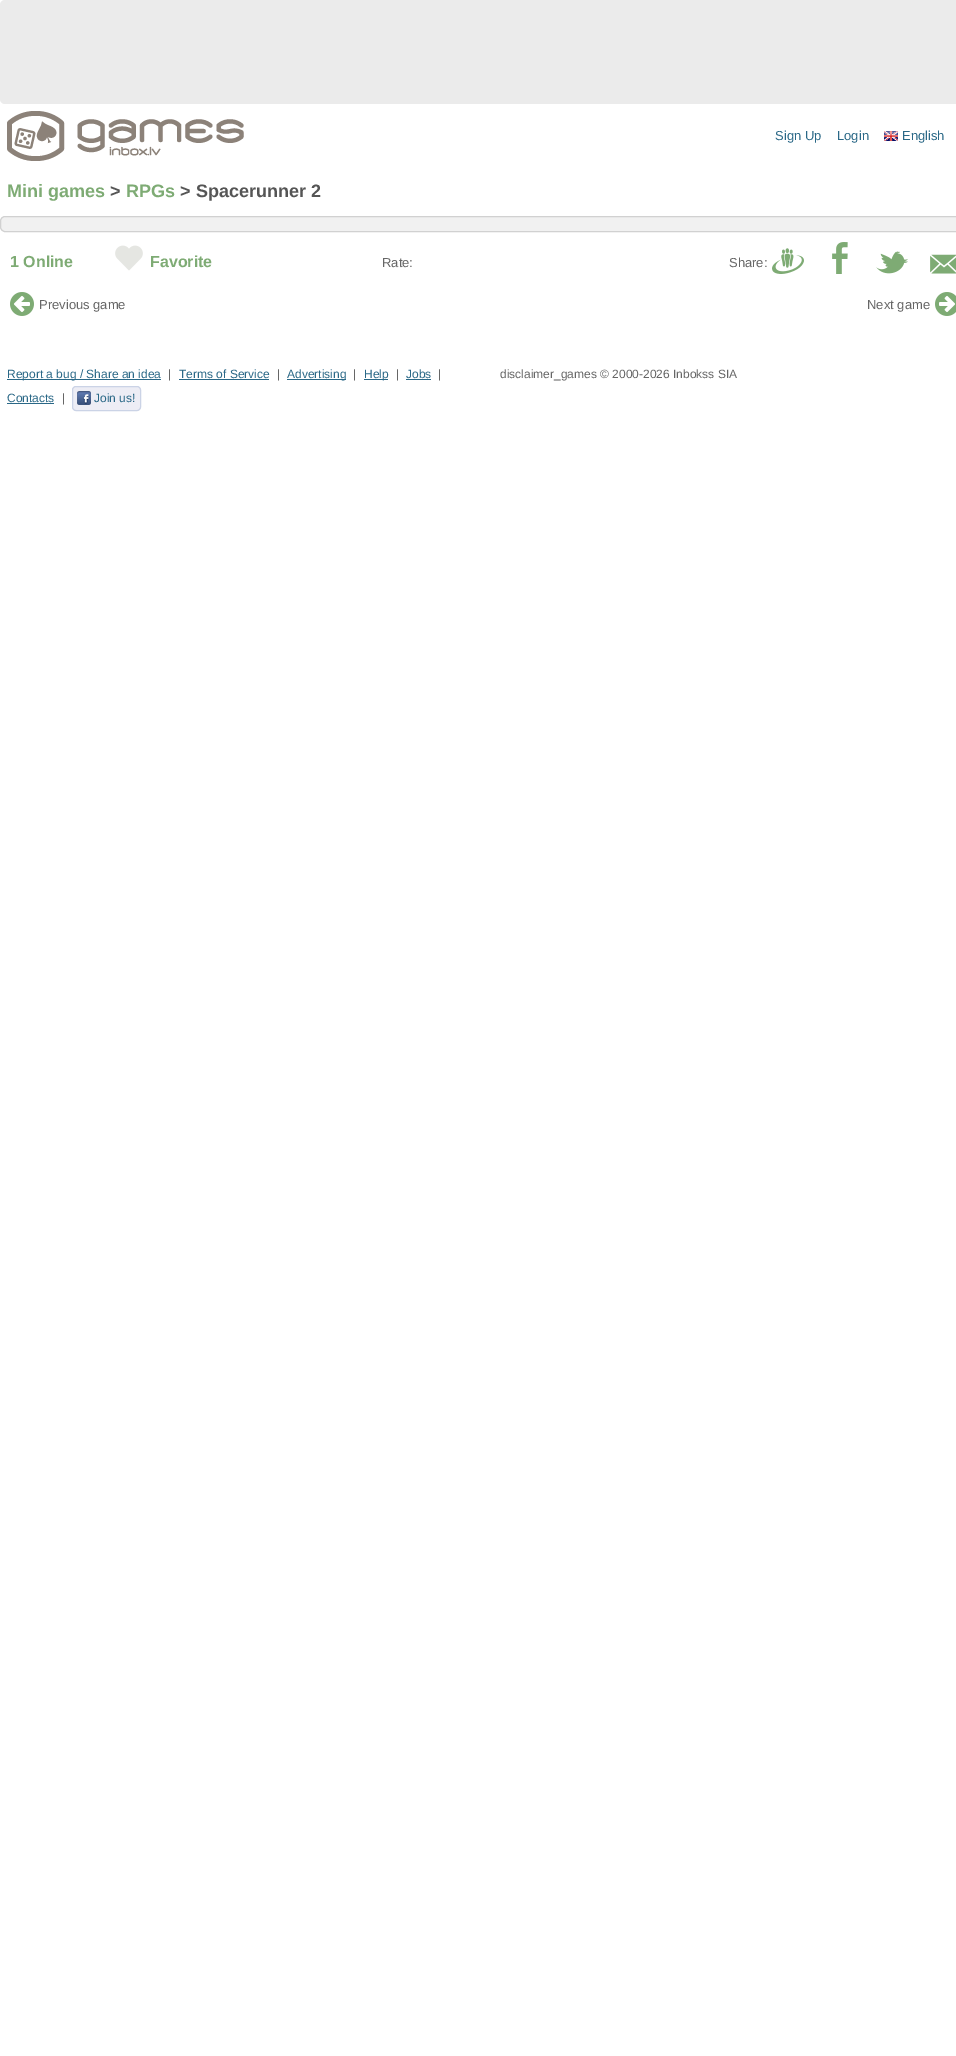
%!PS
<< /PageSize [956 2056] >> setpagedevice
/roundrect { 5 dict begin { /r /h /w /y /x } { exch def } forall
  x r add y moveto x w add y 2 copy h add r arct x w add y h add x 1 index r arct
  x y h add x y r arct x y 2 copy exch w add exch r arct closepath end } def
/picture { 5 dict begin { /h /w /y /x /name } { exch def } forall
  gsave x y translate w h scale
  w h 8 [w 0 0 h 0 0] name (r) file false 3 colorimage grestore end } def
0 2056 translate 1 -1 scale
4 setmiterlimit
1 setgray
0 0 956 2056 rectfill
0.922 setgray
0 0 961 104 5 roundrect fill
(img1.rgb) 7 111 237 50 picture
/LiberationSans-Regular [13 0 0 -13 0 0] selectfont
0.165 0.408 0.529 setrgbcolor
775 140 moveto (Sign Up) show
837 140 moveto (Login) show
(img2.rgb) 884 131 14 10 picture
902 140 moveto (English) show
/LiberationSans-Bold [18 0 0 -18 0 0] selectfont
0.494 0.671 0.455 setrgbcolor
7 197 moveto (Mini games) show
0.333 setgray
110 197 moveto (>) show
0.494 0.671 0.455 setrgbcolor
126 197 moveto (RPGs) show
0.333 setgray
180 197 moveto (> Spacerunner 2) show
0.945 setgray
0.5 216.5 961 15 4.5 roundrect gsave fill grestore
0.82 setgray
stroke
/LiberationSans-Bold [16 0 0 -16 0 0] selectfont
0.494 0.671 0.455 setrgbcolor
10 267 moveto (1 Online) show
(img3.rgb) 115 245 28 26 picture
150 267 moveto (Favorite) show
/LiberationSans-Regular [13 0 0 -13 0 0] selectfont
0.4 setgray
382 267 moveto (Rate:) show
729 267 moveto (Share:) show
(img4.rgb) 772 248 32 26 picture
(img5.rgb) 832 242 16 32 picture
(img6.rgb) 876 251 32 23 picture
(img7.rgb) 930 254 26 20 picture
(img8.rgb) 10 292 24 24 picture
39 309 moveto (Previous game) show
867 309 moveto (Next game) show
(img9.rgb) 935 292 21 24 picture
0.165 0.408 0.529 setrgbcolor
7 379 154 1 rectfill
/LiberationSans-Regular [12 0 0 -12 0 0] selectfont
7 378 moveto (Report a bug / Share an idea) show
0.4 setgray
168 378 moveto (|) show
0.165 0.408 0.529 setrgbcolor
179 378 moveto (Terms of Service) show
179 379 90 1 rectfill
0.4 setgray
277 378 moveto (|) show
0.165 0.408 0.529 setrgbcolor
287 379 59 1 rectfill
287 378 moveto (Advertising) show
0.4 setgray
353 378 moveto (|) show
0.165 0.408 0.529 setrgbcolor
364 379 24 1 rectfill
364 378 moveto (Help) show
0.4 setgray
396 378 moveto (|) show
0.165 0.408 0.529 setrgbcolor
406 378 moveto (Jobs) show
406 379 25 1 rectfill
0.4 setgray
438 378 moveto (|) show
0.165 0.408 0.529 setrgbcolor
7 402 moveto (Contacts) show
7 403 47 1 rectfill
0.4 setgray
62 402 moveto (|) show
0.929 0.929 0.961 setrgbcolor
72.5 386.5 68 24 3.5 roundrect gsave fill grestore
0.796 0.827 0.902 setrgbcolor
stroke
(img10.rgb) 77 391 14 14 picture
0.165 0.408 0.529 setrgbcolor
94 402 moveto (Join us!) show
0.4 setgray
500 378 moveto (disclaimer_games © 2000-2026 Inbokss SIA) show
showpage
